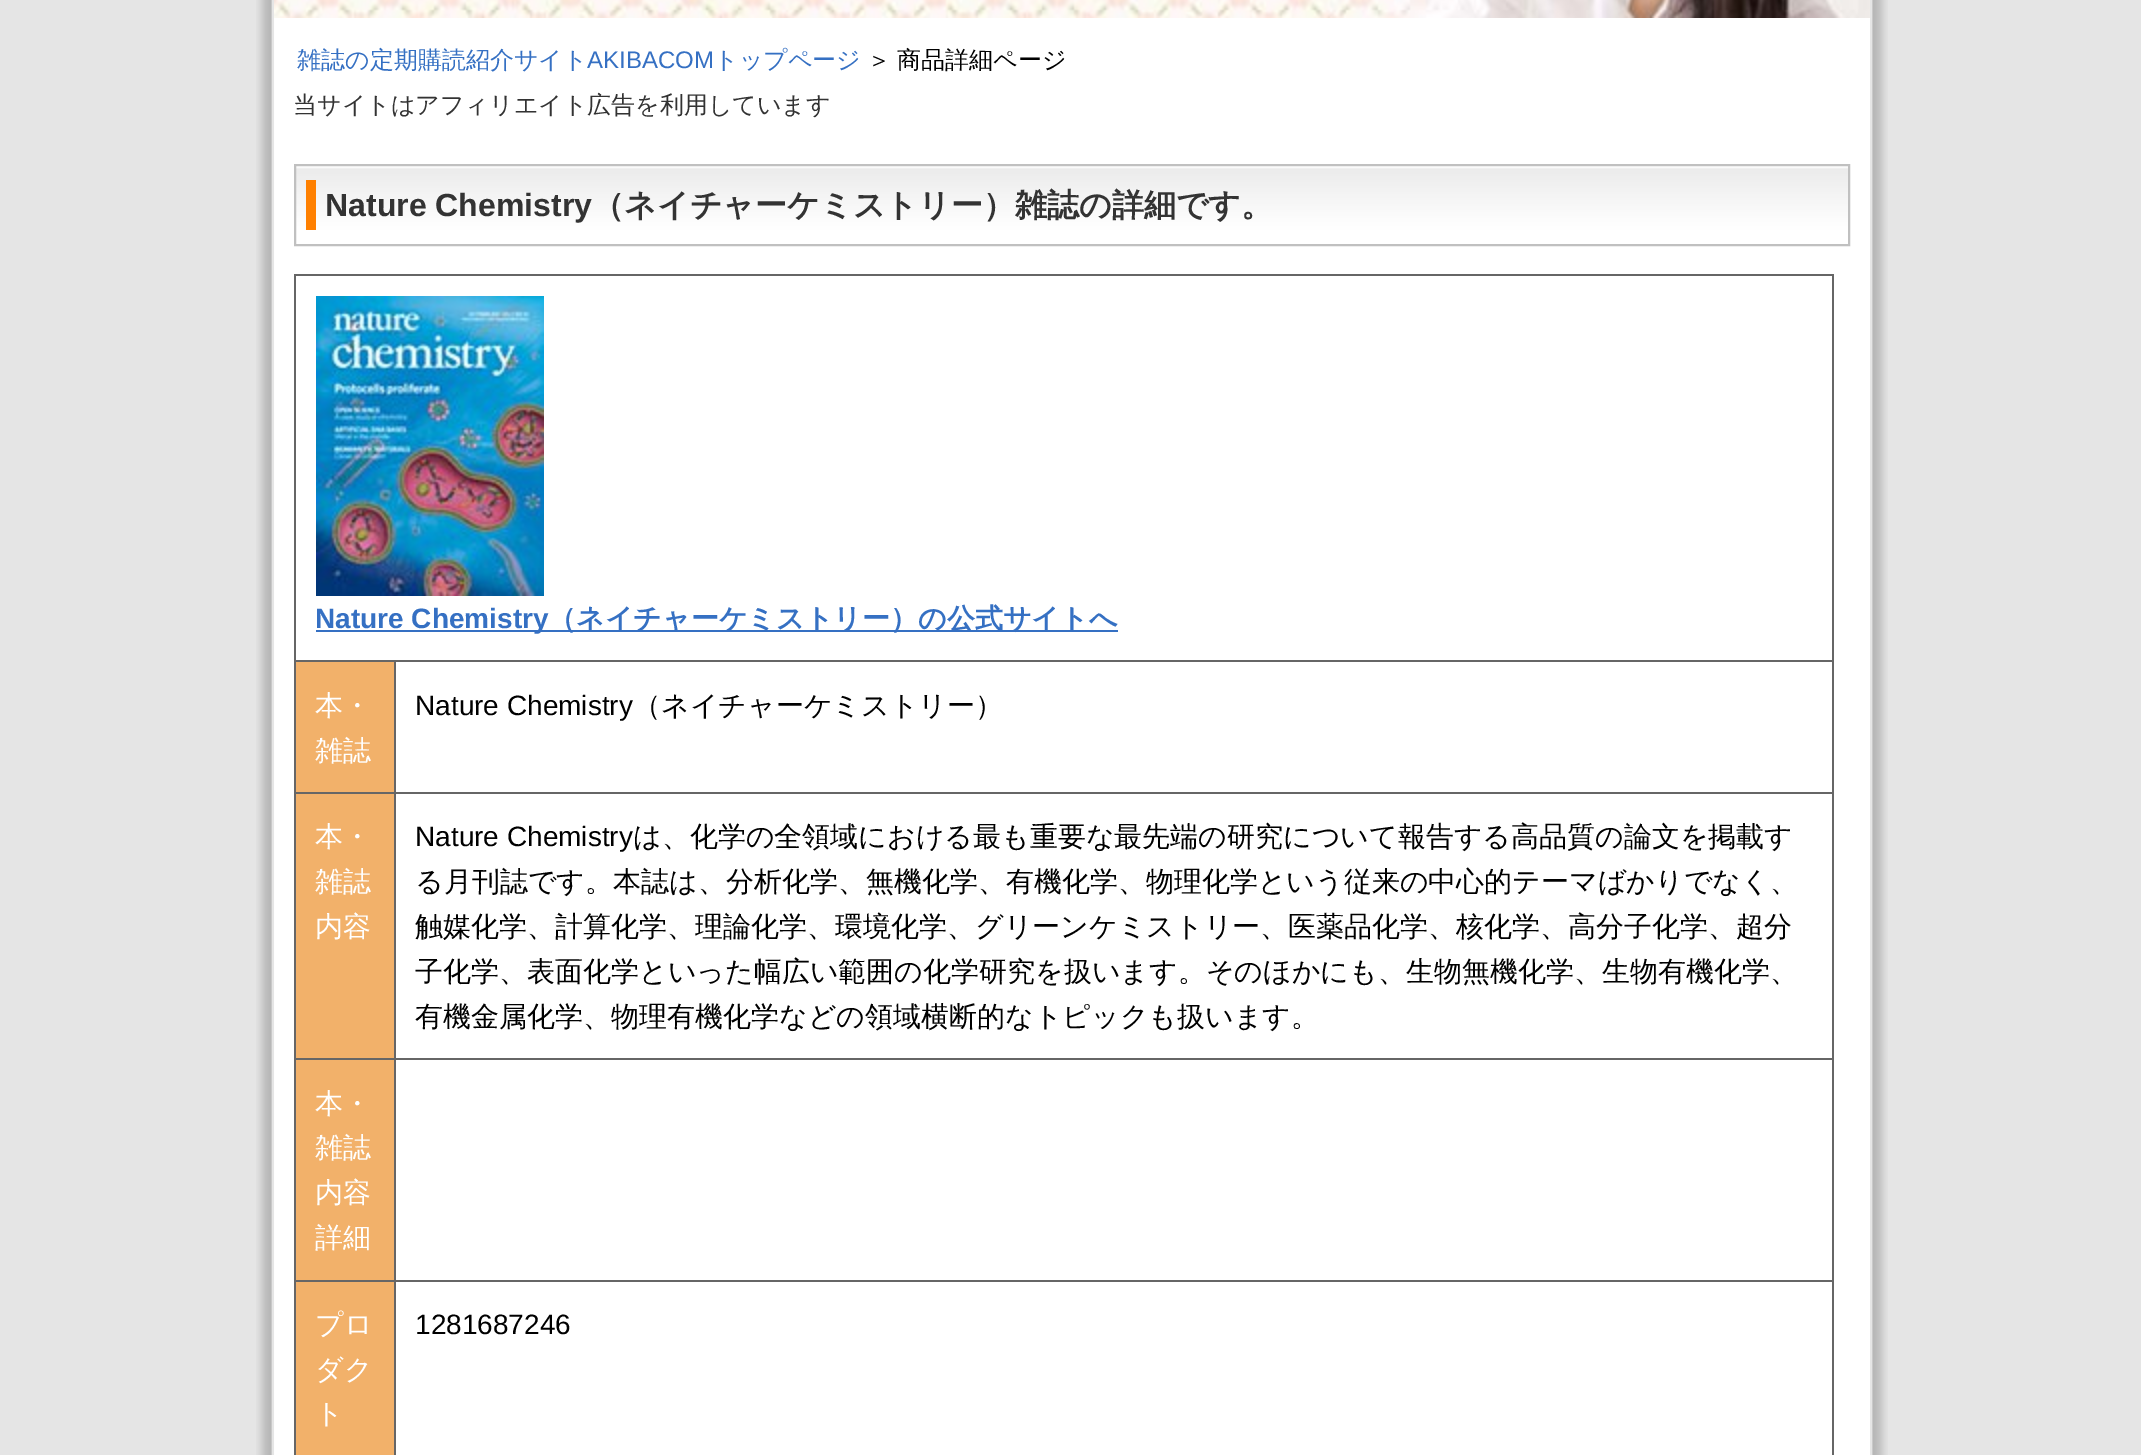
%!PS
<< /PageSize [2141 1455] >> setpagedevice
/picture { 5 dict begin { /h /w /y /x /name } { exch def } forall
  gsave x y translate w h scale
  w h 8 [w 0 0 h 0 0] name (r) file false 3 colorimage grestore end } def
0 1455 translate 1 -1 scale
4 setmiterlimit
0.898 setgray
0 0 2141 1455 rectfill
(img1.rgb) 256 0 1632 1455 picture
1870 0 2 1455 rectfill
272 0 2 1455 rectfill
(img2.rgb) 274 0 1596 18 picture
/WenQuanYiZenHei-Medium [24 0 0 -24 0 0] selectfont
0.208 0.439 0.765 setrgbcolor
297 68 moveto (雑誌の定期購読紹介サイト) show
/LiberationSans-Regular [24 0 0 -24 0 0] selectfont
587 68 moveto (AKIBACOM) show
/WenQuanYiZenHei-Medium [24 0 0 -24 0 0] selectfont
714 68 moveto (トップページ) show
0 setgray
867 68 moveto -1 0 32 (＞ 商品詳細ページ) widthshow
0.2 setgray
293 113 moveto (当サイトはアフィリエイト広告を利用しています) show
(img3.rgb) 296 166 1552 78 picture
0.753 setgray
2 setlinewidth
295 165 1554 80 rectstroke
1 0.502 0 setrgbcolor
306 180 10 50 rectfill
/LiberationSans-Bold [32 0 0 -32 0 0] selectfont
0.2 setgray
325 216 moveto (Nature Chemistry) show
/WenQuanYiZenHei-Bold [32 0 0 -32 0 0] selectfont
592 216 moveto (（ネイチャーケミストリー）雑誌の詳細です。) show
0.4 setgray
294 274 1540 2 rectfill
394 660 1440 2 rectfill
394 792 1440 2 rectfill
394 1058 1440 2 rectfill
394 1280 1440 2 rectfill
1832 1280 2 175 rectfill
1832 1058 2 224 rectfill
1832 792 2 268 rectfill
1832 660 2 134 rectfill
1832 274 2 388 rectfill
394 1280 2 175 rectfill
294 1280 102 2 rectfill
394 1058 2 224 rectfill
294 1058 102 2 rectfill
394 792 2 268 rectfill
294 792 102 2 rectfill
394 660 2 134 rectfill
294 660 102 2 rectfill
294 1280 2 175 rectfill
294 1058 2 224 rectfill
294 792 2 268 rectfill
294 660 2 134 rectfill
294 274 2 388 rectfill
(img4.rgb) 316 296 228 300 picture
0.208 0.439 0.765 setrgbcolor
316 630 802 2 rectfill
/LiberationSans-Bold [28 0 0 -28 0 0] selectfont
315 628 moveto (Nature Chemistry) show
/WenQuanYiZenHei-Bold [28 0 0 -28 0 0] selectfont
548 628 moveto (（ネイチャーケミストリー）の公式サイトへ) show
0.949 0.694 0.416 setrgbcolor
296 662 98 130 rectfill
/WenQuanYiZenHei-Medium [28 0 0 -28 0 0] selectfont
1 setgray
315 715 moveto (本・) show
315 760 moveto (雑誌) show
/LiberationSans-Regular [28 0 0 -28 0 0] selectfont
0 setgray
415 715 moveto (Nature Chemistry) show
/WenQuanYiZenHei-Medium [28 0 0 -28 0 0] selectfont
633 715 moveto (（ネイチャーケミストリー）) show
0.949 0.694 0.416 setrgbcolor
296 794 98 264 rectfill
1 setgray
315 846 moveto (本・) show
315 891 moveto (雑誌) show
315 936 moveto (内容) show
/LiberationSans-Regular [28 0 0 -28 0 0] selectfont
0 setgray
415 846 moveto (Nature Chemistry) show
/WenQuanYiZenHei-Medium [28 0 0 -28 0 0] selectfont
633 846 moveto (は、化学の全領域における最も重要な最先端の研究について報告する高品質の論文を掲載す) show
415 891 moveto (る月刊誌です。本誌は、分析化学、無機化学、有機化学、物理化学という従来の中心的テーマばかりでなく、) show
415 936 moveto (触媒化学、計算化学、理論化学、環境化学、グリーンケミストリー、医薬品化学、核化学、高分子化学、超分) show
415 981 moveto (子化学、表面化学といった幅広い範囲の化学研究を扱います。そのほかにも、生物無機化学、生物有機化学、) show
415 1026 moveto (有機金属化学、物理有機化学などの領域横断的なトピックも扱います。) show
0.949 0.694 0.416 setrgbcolor
296 1060 98 220 rectfill
1 setgray
315 1113 moveto (本・) show
315 1157 moveto (雑誌) show
315 1202 moveto (内容) show
315 1247 moveto (詳細) show
0.949 0.694 0.416 setrgbcolor
296 1282 98 173 rectfill
1 setgray
315 1334 moveto (プロ) show
315 1379 moveto (ダク) show
315 1423 moveto (ト) show
/LiberationSans-Regular [28 0 0 -28 0 0] selectfont
0 setgray
415 1334 moveto (1281687246) show
showpage
